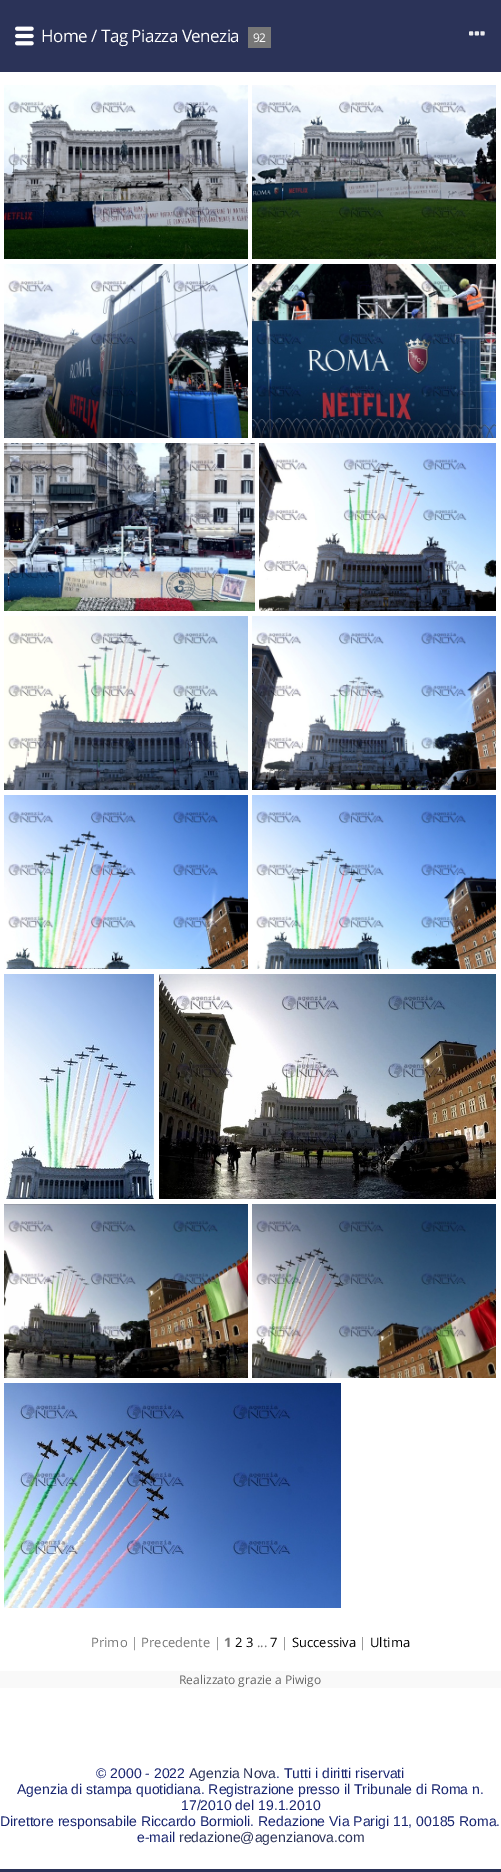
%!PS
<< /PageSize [501 1872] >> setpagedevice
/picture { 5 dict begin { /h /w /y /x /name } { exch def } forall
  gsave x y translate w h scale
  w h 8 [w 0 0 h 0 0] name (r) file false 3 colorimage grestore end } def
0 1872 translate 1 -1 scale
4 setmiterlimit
1 setgray
0 0 501 1872 rectfill
0.169 0.2 0.345 setrgbcolor
0 0 501 72 rectfill
(img1.rgb) 15 26 19 20 picture
/OpenSans-Regular [17 0 0 -17 0 0] selectfont
1 setgray
41 42 moveto -0.5 0 (Home / Tag Piazza Venezia) ashow
0.467 setgray
248 27 23 21 rectfill
/OpenSans-Regular [12 0 0 -12 0 0] selectfont
1 setgray
253 42 moveto -0.5 0 (92) ashow
/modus-Regular [20 0 0 -20 0 0] selectfont
0.918 0.922 0.933 setrgbcolor
469 41 moveto (…) show
(img2.rgb) 4 85 244 174 picture
(img3.rgb) 252 85 244 174 picture
(img4.rgb) 4 264 244 174 picture
(img5.rgb) 252 264 244 174 picture
(img6.rgb) 4 443 251 168 picture
(img7.rgb) 259 443 237 168 picture
(img8.rgb) 4 616 244 174 picture
(img9.rgb) 252 616 244 174 picture
(img10.rgb) 4 795 244 174 picture
(img11.rgb) 252 795 244 174 picture
(img12.rgb) 4 974 150 225 picture
(img13.rgb) 159 974 337 225 picture
(img14.rgb) 4 1204 244 174 picture
(img15.rgb) 252 1204 244 174 picture
(img16.rgb) 4 1383 337 225 picture
/OpenSans-Regular [13 0 0 -13 0 0] selectfont
0.467 setgray
91 1647 moveto (Primo | Precedente |) show
/OpenSans-Bold [13 0 0 -13 0 0] selectfont
224 1647 moveto (1) show
/OpenSans-Regular [13 0 0 -13 0 0] selectfont
0 setgray
235 1647 moveto (2 3) show
0.467 setgray
257 1647 moveto (...) show
0 setgray
270 1647 moveto (7) show
0.467 setgray
281 1647 moveto (|) show
0 setgray
292 1647 moveto (Successiva) show
0.467 setgray
359 1647 moveto (|) show
0 setgray
370 1647 moveto (Ultima) show
0.976 setgray
0 1671 501 17 rectfill
/OpenSans-Regular [12 0 0 -12 0 0] selectfont
0.4 setgray
179 1684 moveto (Realizzato grazie a Piwigo) show
0.169 0.2 0.345 setrgbcolor
0 1869 501 3 rectfill
/LiberationSans-Regular [14 0 0 -14 0 0] selectfont
0.094 0.145 0.439 setrgbcolor
96 1778 moveto (© 2000 - 2022) show
0.169 0.2 0.345 setrgbcolor
189 1778 moveto (Agenzia Nova) show
0.094 0.145 0.439 setrgbcolor
276 1778 moveto (. Tutti i diritti riservati) show
17 1794 moveto (Agenzia di stampa quotidiana. Registrazione presso il Tribunale di Roma n.) show
181 1810 moveto (17/2010 del 19.1.2010) show
0 1826 moveto (Direttore responsabile Riccardo Bormioli. Redazione Via Parigi 11, 00185 Roma.) show
137 1842 moveto (e-mail) show
0.169 0.2 0.345 setrgbcolor
179 1842 moveto (redazione@agenzianova.com) show
showpage
